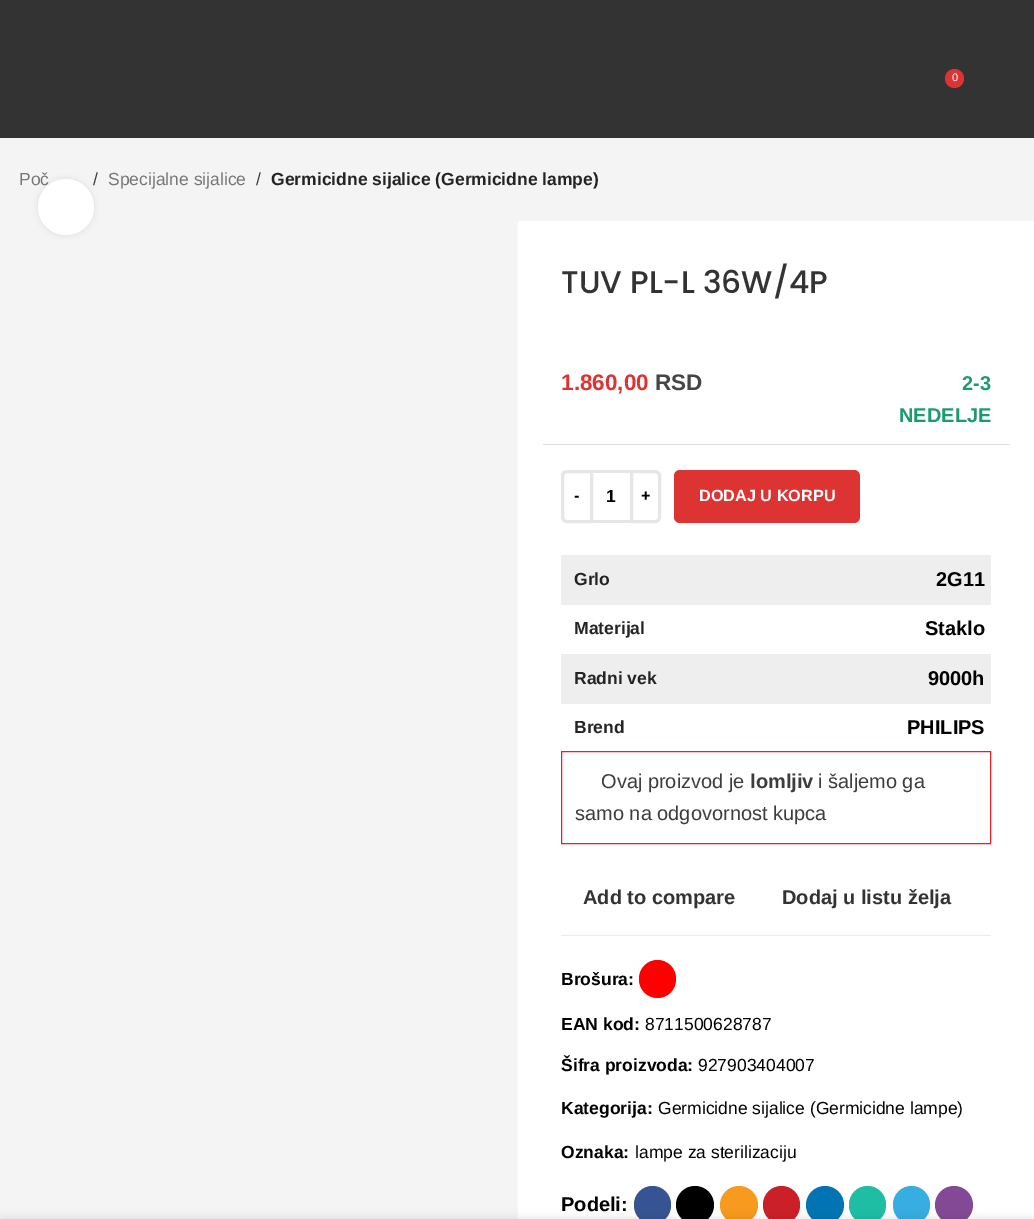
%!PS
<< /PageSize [1034 1219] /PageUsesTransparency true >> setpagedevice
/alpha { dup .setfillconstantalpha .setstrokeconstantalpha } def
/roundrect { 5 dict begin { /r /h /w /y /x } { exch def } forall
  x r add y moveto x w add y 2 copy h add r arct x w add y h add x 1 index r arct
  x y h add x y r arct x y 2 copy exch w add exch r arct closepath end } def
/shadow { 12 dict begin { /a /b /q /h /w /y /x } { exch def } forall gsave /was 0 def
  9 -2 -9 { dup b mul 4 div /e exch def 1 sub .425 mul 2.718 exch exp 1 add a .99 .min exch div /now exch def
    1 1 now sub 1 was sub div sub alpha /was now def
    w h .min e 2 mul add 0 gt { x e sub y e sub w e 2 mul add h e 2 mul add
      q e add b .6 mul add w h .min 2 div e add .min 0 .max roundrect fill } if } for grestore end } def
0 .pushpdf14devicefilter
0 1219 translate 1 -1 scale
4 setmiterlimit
0.957 setgray
0 0 1034 1219 rectfill
0.2 setgray
0 0 1034 138 rectfill
0.867 0.2 0.2 setrgbcolor
newpath 954.5 78.5 9.5 0 360 arc closepath fill
/LiberationSans-Regular [11 0 0 -11 0 0] selectfont
1 setgray
952 81 moveto (0) show
/LiberationSans-Regular [17.5 0 0 -17.5 0 0] selectfont
0.463 setgray
19 185 moveto (Poč) show
0.239 setgray
93 185 moveto (/) show
0.463 setgray
108 185 moveto (Specijalne sijalice) show
0.239 setgray
256 185 moveto (/) show
/LiberationSans-Bold [17.5 0 0 -17.5 0 0] selectfont
0.141 setgray
271 185 moveto (Germicidne sijalice \(Germicidne lampe\)) show
0 setgray
38 179 56 56 28 3 0.08 shadow
1 setgray
newpath 66 207 28 0 360 arc closepath fill
518 221 516 998 rectfill
/Poppins-Medium [31.25 0 0 -31.25 0 0] selectfont
0.2 setgray
561 293 moveto (TUV PL-L 36W/4P) show
/LiberationSans-Bold [22.5 0 0 -22.5 0 0] selectfont
0.867 0.2 0.2 setrgbcolor
561 390 moveto (1.860,00) show
0.271 setgray
655 390 moveto (RSD) show
/LiberationSans-Bold [20 0 0 -20 0 0] selectfont
0.114 0.604 0.443 setrgbcolor
962 390 moveto (2-3) show
899 422 moveto (NEDELJE) show
0.867 setgray
543 444 467 1 rectfill
0.902 setgray
3 setlinewidth
newpath 567 471.5 moveto 591.5 471.5 lineto 591.5 521.5 lineto 567 521.5 lineto 564.5 521.5 562.5 519.5 562.5 517 curveto 562.5 476 lineto 562.5 473.5 564.5 471.5 567 471.5 curveto closepath stroke
/LiberationSans-Bold [16.25 0 0 -16.25 0 0] selectfont
0 setgray
574 501 moveto (-) show
0.902 setgray
593 470 37 3 rectfill
593 520 37 3 rectfill
/LiberationSans-Bold [17.5 0 0 -17.5 0 0] selectfont
0 setgray
606 502 moveto (1) show
0.902 setgray
newpath 631.5 471.5 moveto 655 471.5 lineto 657.5 471.5 659.5 473.5 659.5 476 curveto 659.5 517 lineto 659.5 519.5 657.5 521.5 655 521.5 curveto 631.5 521.5 lineto closepath stroke
/LiberationSans-Bold [16.25 0 0 -16.25 0 0] selectfont
0 setgray
641 501 moveto (+) show
0.867 0.2 0.2 setrgbcolor
674 470 186 53 6 roundrect fill
1 setgray
699 501 moveto (DODAJ U KORPU) show
0.933 setgray
561 555 430 50 rectfill
/LiberationSans-Bold [17.5 0 0 -17.5 0 0] selectfont
0.141 setgray
574 585 moveto (Grlo) show
/LiberationSans-Bold [20 0 0 -20 0 0] selectfont
0 setgray
936 586 moveto (2G11) show
/LiberationSans-Bold [17.5 0 0 -17.5 0 0] selectfont
0.141 setgray
574 634 moveto (Materijal) show
/LiberationSans-Bold [20 0 0 -20 0 0] selectfont
0 setgray
925 635 moveto (Staklo) show
0.933 setgray
561 654 430 50 rectfill
/LiberationSans-Bold [17.5 0 0 -17.5 0 0] selectfont
0.141 setgray
574 684 moveto (Radni vek) show
/LiberationSans-Bold [20 0 0 -20 0 0] selectfont
0 setgray
928 685 moveto (9000h) show
/LiberationSans-Bold [17.5 0 0 -17.5 0 0] selectfont
0.141 setgray
574 733 moveto (Brend) show
/LiberationSans-Bold [20 0 0 -20 0 0] selectfont
0 setgray
907 734 moveto (PHILIPS) show
0.922 0.114 0.145 setrgbcolor
1 setlinewidth
561.5 751.5 429 92 rectstroke
/LiberationSans-Regular [20 0 0 -20 0 0] selectfont
0.239 setgray
601 788 moveto (Ovaj proizvod je) show
/LiberationSans-Bold [20 0 0 -20 0 0] selectfont
750 788 moveto (lomljiv) show
/LiberationSans-Regular [20 0 0 -20 0 0] selectfont
818 788 moveto (i šaljemo ga) show
575 820 moveto (samo na odgovornost kupca) show
/LiberationSans-Bold [20 0 0 -20 0 0] selectfont
0.2 setgray
583 904 moveto (Add to compare) show
782 904 moveto (Dodaj u listu želja) show
0.922 setgray
561 935 430 1 rectfill
/LiberationSans-Bold [17.5 0 0 -17.5 0 0] selectfont
0 setgray
561 985 moveto (Brošura:) show
1 0 0 setrgbcolor
639 960 37 38 18.5 roundrect fill
0 setgray
561 1030 moveto (EAN kod:) show
/LiberationSans-Regular [17.5 0 0 -17.5 0 0] selectfont
645 1030 moveto (8711500628787) show
/LiberationSans-Bold [17.5 0 0 -17.5 0 0] selectfont
561 1071 moveto (Šifra proizvoda:) show
/LiberationSans-Regular [17.5 0 0 -17.5 0 0] selectfont
698 1071 moveto (927903404007) show
/LiberationSans-Bold [17.5 0 0 -17.5 0 0] selectfont
561 1114 moveto (Kategorija:) show
/LiberationSans-Regular [17.5 0 0 -17.5 0 0] selectfont
658 1114 moveto (Germicidne sijalice \(Germicidne lampe\)) show
/LiberationSans-Bold [17.5 0 0 -17.5 0 0] selectfont
561 1158 moveto (Oznaka:) show
/LiberationSans-Regular [17.5 0 0 -17.5 0 0] selectfont
635 1158 moveto (lampe za sterilizaciju) show
/LiberationSans-Bold [20 0 0 -20 0 0] selectfont
561 1211 moveto (Podeli:) show
0.212 0.329 0.576 setrgbcolor
634 1186 37 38 18.5 roundrect fill
0 setgray
newpath 695 1205 19 0 360 arc closepath fill
0.973 0.604 0.118 setrgbcolor
newpath 739 1205 19 0 360 arc closepath fill
0.796 0.125 0.153 setrgbcolor
763 1186 37 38 18.5 roundrect fill
0.008 0.455 0.702 setrgbcolor
newpath 825 1205 19 0 360 arc closepath fill
0.118 0.745 0.647 setrgbcolor
849 1186 37 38 18.5 roundrect fill
0.216 0.682 0.886 setrgbcolor
893 1186 37 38 18.5 roundrect fill
0.514 0.286 0.584 setrgbcolor
newpath 954 1205 19 0 360 arc closepath fill
0 setgray
0 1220 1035 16 0 5.5 0.14 shadow
.poppdf14devicefilter showpage
